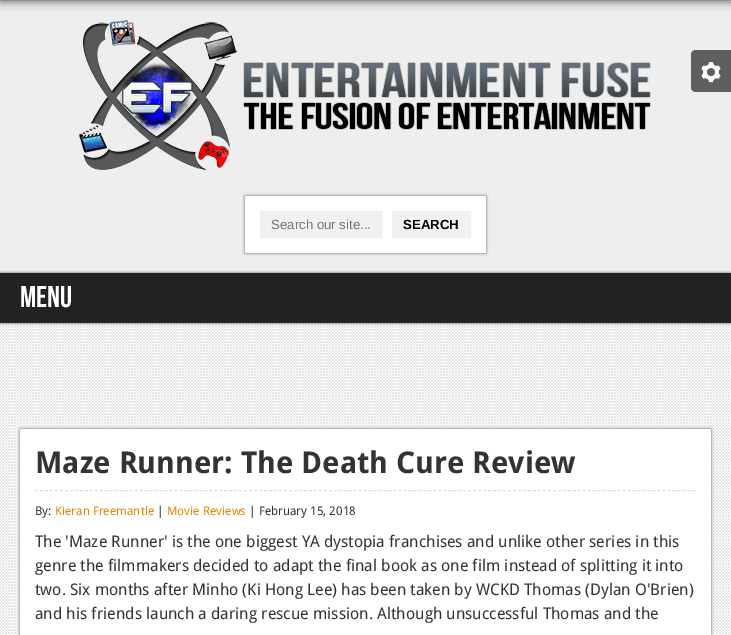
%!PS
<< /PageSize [731 635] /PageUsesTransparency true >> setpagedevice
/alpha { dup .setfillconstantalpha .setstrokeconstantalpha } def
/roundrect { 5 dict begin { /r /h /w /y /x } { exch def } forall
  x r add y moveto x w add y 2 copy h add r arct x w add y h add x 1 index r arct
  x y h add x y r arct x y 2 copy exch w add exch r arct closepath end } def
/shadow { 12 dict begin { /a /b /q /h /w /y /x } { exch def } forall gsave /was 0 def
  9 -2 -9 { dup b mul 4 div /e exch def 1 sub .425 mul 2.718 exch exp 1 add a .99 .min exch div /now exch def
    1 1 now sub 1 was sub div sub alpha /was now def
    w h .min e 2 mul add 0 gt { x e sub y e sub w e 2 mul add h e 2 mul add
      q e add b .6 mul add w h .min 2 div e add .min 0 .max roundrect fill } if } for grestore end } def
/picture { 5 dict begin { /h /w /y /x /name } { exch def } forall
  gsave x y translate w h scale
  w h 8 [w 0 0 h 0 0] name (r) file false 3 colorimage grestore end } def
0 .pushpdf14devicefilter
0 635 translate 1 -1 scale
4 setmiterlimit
1 setgray
0 0 731 635 rectfill
(img1.rgb) 0 323 731 312 picture
0.933 setgray
0 0 731 273 rectfill
0 setgray
0 -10 731 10 0 5 0.8 shadow
0.373 setgray
newpath 696 50 moveto 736 50 lineto 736 92 lineto 696 92 lineto 693 92 691 90 691 87 curveto 691 55 lineto 691 52 693 50 696 50 curveto closepath fill
(img2.rgb) 701 62 20 21 picture
(img3.rgb) 79 20 572 150 picture
0.4 setgray
245 196 241 57 0 1.5 1 shadow
1 setgray
245 196 241 57 rectfill
0.945 setgray
newpath 260.5 211.5 moveto 381.5 211.5 lineto 381.5 237.5 lineto 260.5 237.5 lineto closepath gsave fill grestore
0.933 setgray
stroke
/LiberationSans-Regular [13.25 0 0 -13.25 0 0] selectfont
0.459 setgray
271 229 moveto (Search our site...) show
0.945 setgray
newpath 392.5 211.5 moveto 470.5 211.5 lineto 470.5 237.5 lineto 392.5 237.5 lineto closepath gsave fill grestore
0.933 setgray
stroke
/LiberationSans-Bold [13.25 0 0 -13.25 0 0] selectfont
0 setgray
403 229 moveto (SEARCH) show
0.4 setgray
0 273 731 50 0 1.5 1 shadow
0.133 setgray
0 273 731 50 rectfill
/BebasNeue-Regular [30 0 0 -30 0 0] selectfont
1 setgray
20 307 moveto (Menu) show
0.4 setgray
20 429 691 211 0 1.5 1 shadow
1 setgray
20 429 691 206 rectfill
0.867 setgray
[3 1.98] 0 setdash
newpath 35 490.5 moveto 696 490.5 lineto stroke
/DroidSans-Bold [30 0 0 -30 0 0] selectfont
0.2 setgray
35 473 moveto (Maze Runner: The Death Cure Review) show
/DroidSans-Regular [12 0 0 -12 0 0] selectfont
35 515 moveto (By:) show
0.925 0.51 0 setrgbcolor
55 515 moveto (Kieran Freemantle) show
0.2 setgray
157 515 moveto (|) show
0.925 0.51 0 setrgbcolor
167 515 moveto (Movie Reviews) show
0.2 setgray
249 515 moveto (| February 15, 2018) show
/DroidSans-Regular [16 0 0 -16 0 0] selectfont
35 547 moveto (The 'Maze Runner' is the one biggest YA dystopia franchises and unlike other series in this) show
35 571 moveto (genre the filmmakers decided to adapt the final book as one film instead of splitting it into) show
35 595 moveto (two. Six months after Minho \(Ki Hong Lee\) has been taken by WCKD Thomas \(Dylan O'Brien\)) show
35 619 moveto (and his friends launch a daring rescue mission. Although unsuccessful Thomas and the) show
.poppdf14devicefilter showpage
